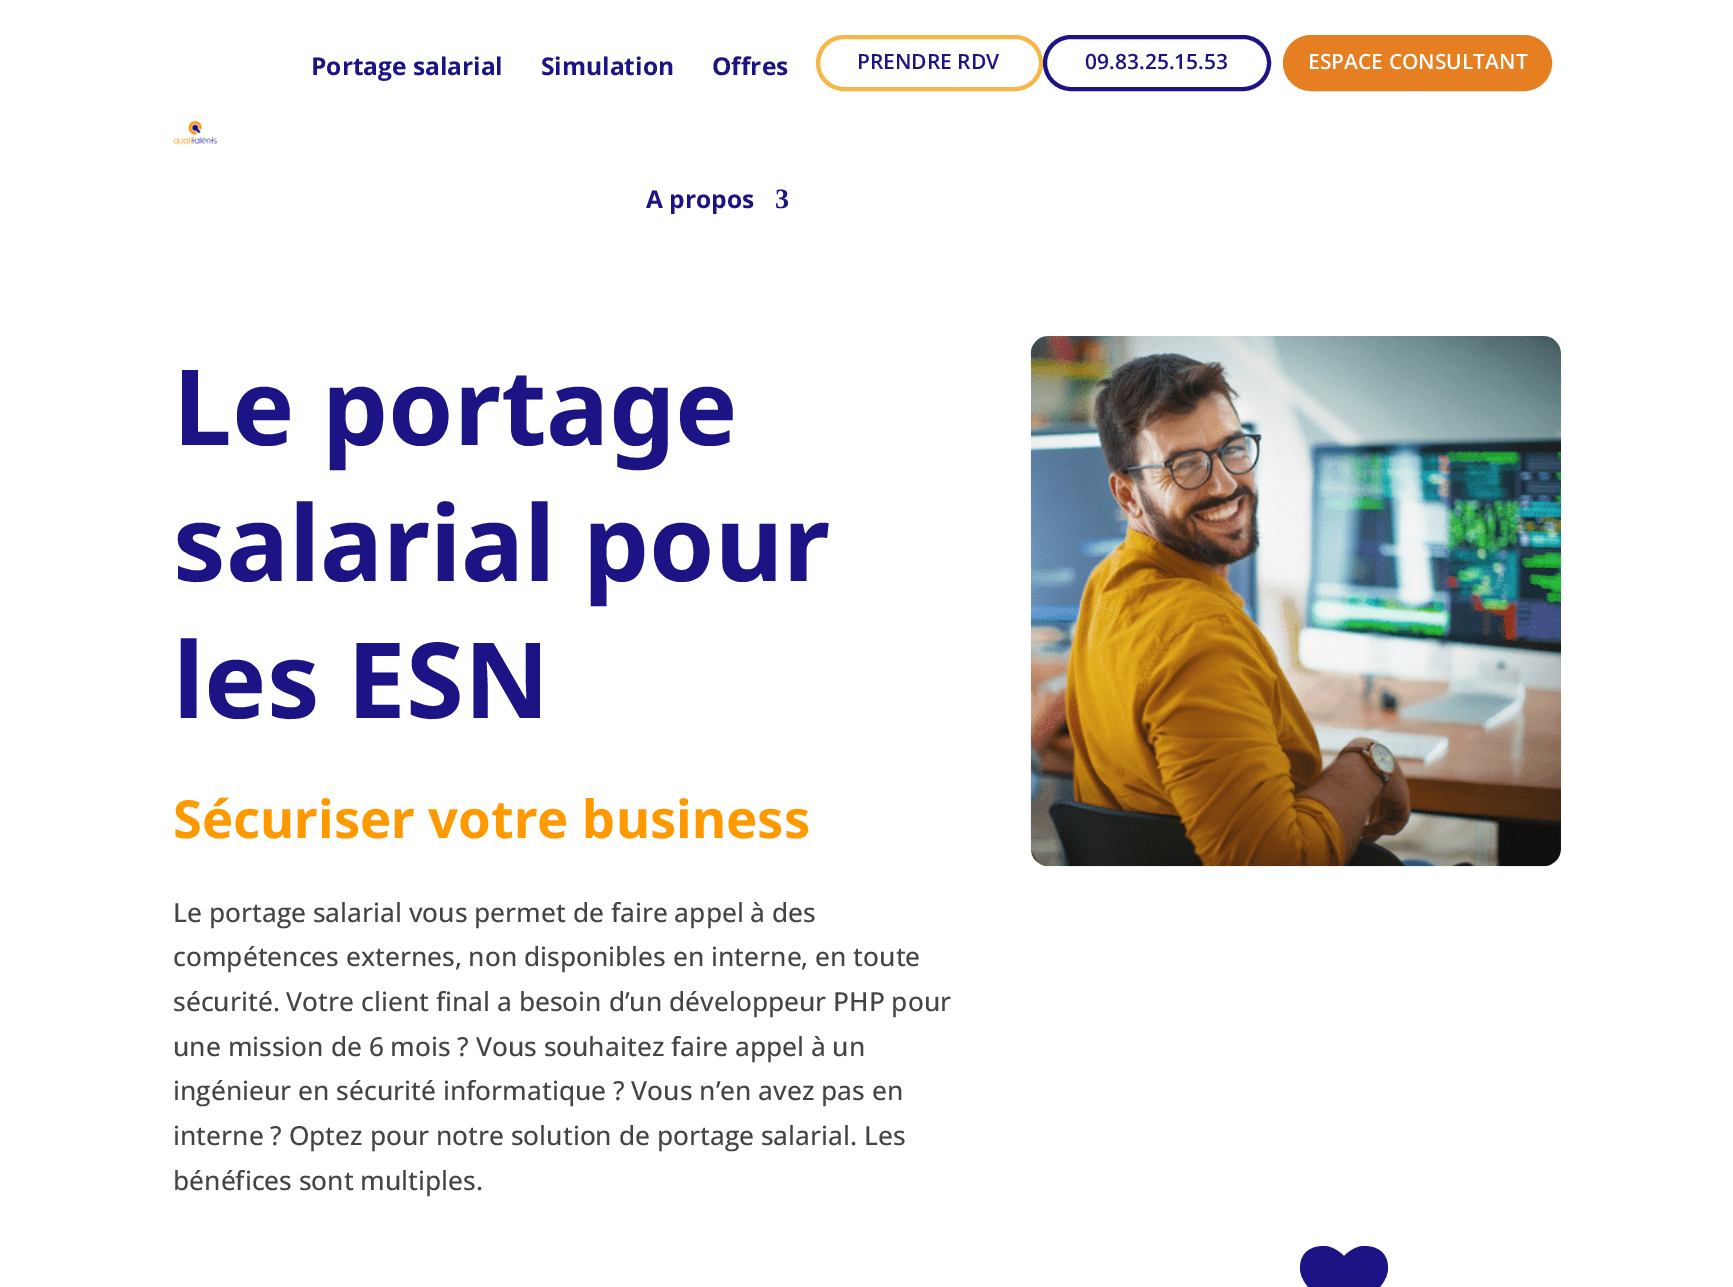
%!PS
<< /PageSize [1733 1287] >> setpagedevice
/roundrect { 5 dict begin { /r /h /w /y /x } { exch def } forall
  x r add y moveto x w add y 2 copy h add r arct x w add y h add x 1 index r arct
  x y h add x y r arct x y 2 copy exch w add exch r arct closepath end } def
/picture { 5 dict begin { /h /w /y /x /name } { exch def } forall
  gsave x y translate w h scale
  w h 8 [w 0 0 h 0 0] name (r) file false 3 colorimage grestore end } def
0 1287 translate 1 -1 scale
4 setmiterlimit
1 setgray
0 0 1733 1287 rectfill
(img1.rgb) 173 120 44 26 picture
/OpenSans-Bold [24.5 0 0 -24.5 0 0] selectfont
0.11 0.075 0.518 setrgbcolor
311 75 moveto (Portage salarial) show
541 75 moveto (Simulation) show
712 75 moveto (Offres) show
646 208 moveto (A propos) show
/LiberationSerif-Bold [28 0 0 -28 0 0] selectfont
775 208 moveto (3) show
0.969 0.714 0.271 setrgbcolor
4 setlinewidth
818 37 223 52 26 roundrect stroke
/OpenSans-SemiBold [21 0 0 -21 0 0] selectfont
0.11 0.075 0.518 setrgbcolor
857 69 moveto (PRENDRE RDV) show
1045 37 224 52 26 roundrect stroke
1085 69 moveto (09.83.25.15.53) show
0.902 0.494 0.133 setrgbcolor
1285 37 265 52 26 roundrect gsave fill grestore
stroke
1 setgray
1308 69 moveto (ESPACE CONSULTANT) show
/NotoSans-Bold [105 0 0 -105 0 0] selectfont
0.11 0.075 0.518 setrgbcolor
173 445 moveto (Le portage) show
173 581 moveto (salarial pour) show
173 718 moveto (les ESN) show
/NotoSans-Bold [52.5 0 0 -52.5 0 0] selectfont
1 0.6 0 setrgbcolor
173 838 moveto (Sécuriser votre business) show
/OpenSans-Medium [26.25 0 0 -26.25 0 0] selectfont
0.267 setgray
173 922 moveto (Le portage salarial vous permet de faire appel à des) show
173 966 moveto (compétences externes, non disponibles en interne, en toute) show
173 1011 moveto (sécurité. Votre client final a besoin d’un développeur PHP pour) show
173 1056 moveto (une mission de 6 mois ? Vous souhaitez faire appel à un) show
173 1100 moveto (ingénieur en sécurité informatique ? Vous n’en avez pas en) show
173 1145 moveto (interne ? Optez pour notre solution de portage salarial. Les) show
173 1190 moveto (bénéfices sont multiples.) show
(img2.rgb) 1030 336 531 531 picture
0.11 0.075 0.518 setrgbcolor
newpath 1344 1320 moveto 1346 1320 lineto 1377 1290 lineto 1377 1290 1388 1280 1388 1268 curveto 1388 1254 1379 1246 1364 1246 curveto 1356 1246 1348 1252 1344 1256 curveto 1340 1252 1332 1246 1324 1246 curveto 1309 1246 1300 1254 1300 1268 curveto 1300 1280 1311 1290 1311 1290 curveto 1342 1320 lineto closepath fill
showpage
